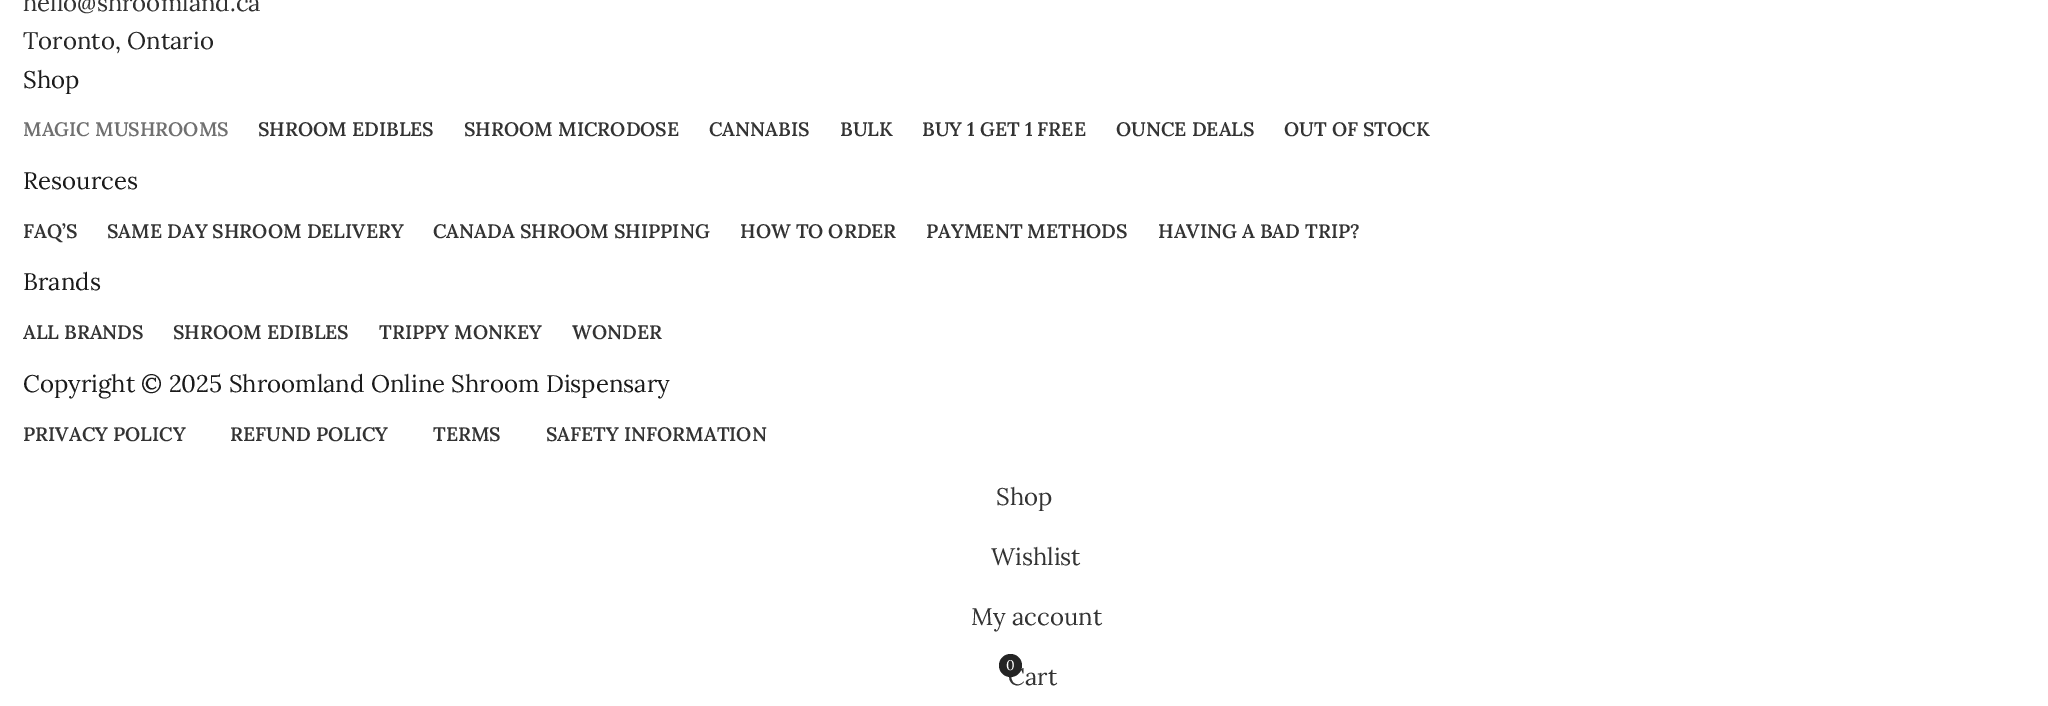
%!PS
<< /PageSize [2048 706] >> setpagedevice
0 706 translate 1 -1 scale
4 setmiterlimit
1 setgray
0 0 2048 706 rectfill
/Lora-Regular [24 0 0 -24 0 0] selectfont
0.2 setgray
23 11 moveto (hello@shroomland.ca) show
0.141 setgray
23 49 moveto (Toronto, Ontario) show
0.102 setgray
23 88 moveto (Shop) show
/Lora-SemiBold [19.5 0 0 -19.5 0 0] selectfont
0.439 setgray
23 136 moveto (MAGIC MUSHROOMS) show
0.2 setgray
258 136 moveto (SHROOM EDIBLES) show
464 136 moveto (SHROOM MICRODOSE) show
709 136 moveto (CANNABIS) show
840 136 moveto (BULK) show
922 136 moveto (BUY 1 GET 1 FREE) show
1116 136 moveto (OUNCE DEALS) show
1284 136 moveto (OUT OF STOCK) show
/Lora-Regular [24 0 0 -24 0 0] selectfont
0.102 setgray
23 189 moveto (Resources) show
/Lora-SemiBold [19.5 0 0 -19.5 0 0] selectfont
0.2 setgray
23 238 moveto (FAQ’S) show
107 238 moveto (SAME DAY SHROOM DELIVERY) show
433 238 moveto (CANADA SHROOM SHIPPING) show
740 238 moveto (HOW TO ORDER) show
926 238 moveto (PAYMENT METHODS) show
1158 238 moveto (HAVING A BAD TRIP?) show
/Lora-Regular [24 0 0 -24 0 0] selectfont
0.102 setgray
23 290 moveto (Brands) show
/Lora-SemiBold [19.5 0 0 -19.5 0 0] selectfont
0.2 setgray
23 339 moveto (ALL BRANDS) show
173 339 moveto (SHROOM EDIBLES) show
379 339 moveto (TRIPPY MONKEY) show
572 339 moveto (WONDER) show
/Lora-Regular [24 0 0 -24 0 0] selectfont
0.102 setgray
23 392 moveto (Copyright © 2025 Shroomland Online Shroom Dispensary) show
/Lora-SemiBold [19.5 0 0 -19.5 0 0] selectfont
0.2 setgray
23 441 moveto (PRIVACY POLICY) show
230 441 moveto (REFUND POLICY) show
433 441 moveto (TERMS) show
546 441 moveto (SAFETY INFORMATION) show
/Lora-Regular [24 0 0 -24 0 0] selectfont
996 505 moveto (Shop) show
991 565 moveto (Wishlist) show
971 625 moveto (My account) show
1008 685 moveto (Cart) show
0.141 setgray
newpath 1010.5 665.5 11.5 0 360 arc closepath fill
/Lora-Regular [14 0 0 -14 0 0] selectfont
1 setgray
1006 670 moveto (0) show
showpage
